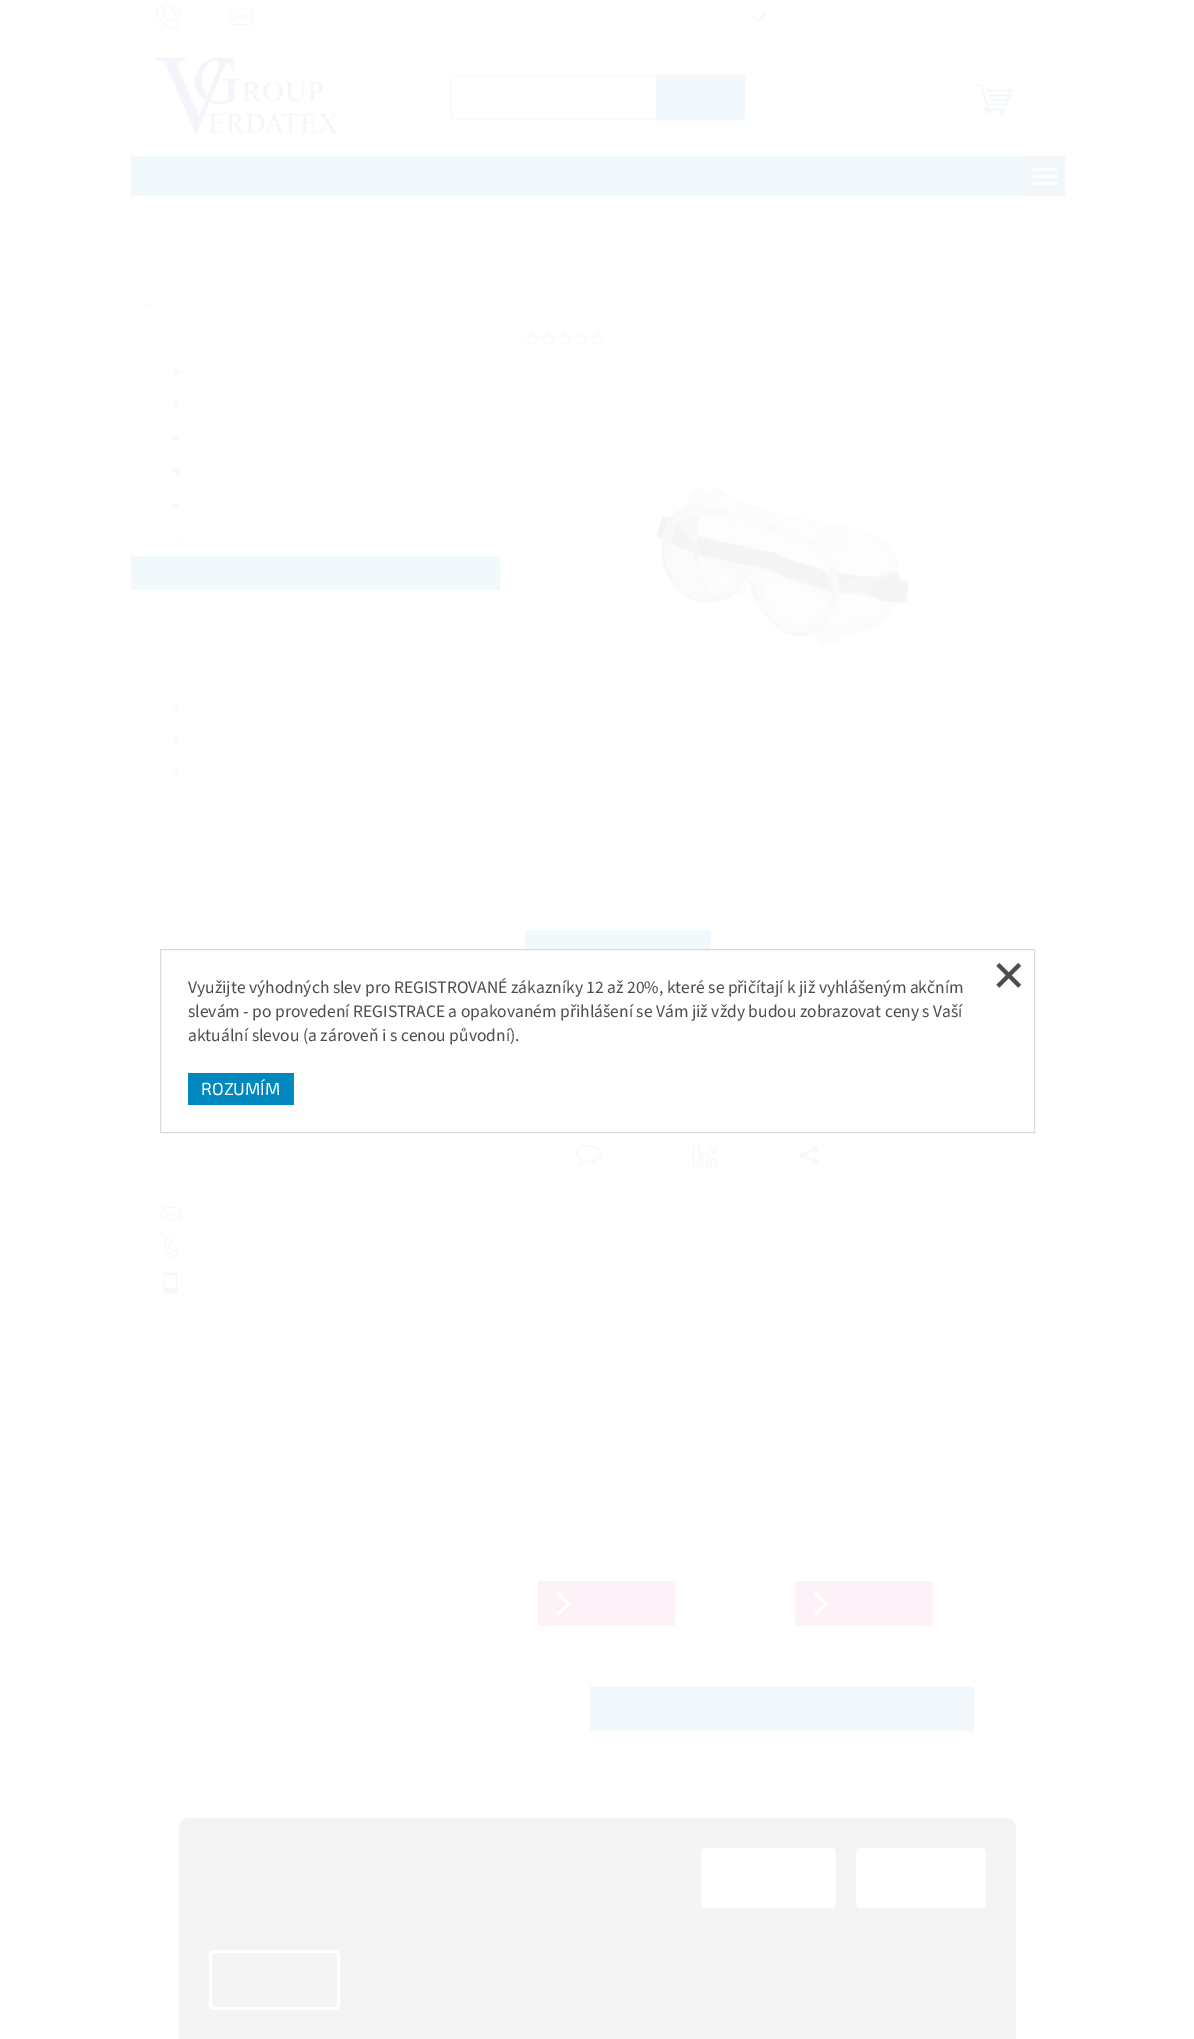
%!PS
<< /PageSize [1194 2039] >> setpagedevice
/roundrect { 5 dict begin { /r /h /w /y /x } { exch def } forall
  x r add y moveto x w add y 2 copy h add r arct x w add y h add x 1 index r arct
  x y h add x y r arct x y 2 copy exch w add exch r arct closepath end } def
/picture { 5 dict begin { /h /w /y /x /name } { exch def } forall
  gsave x y translate w h scale
  w h 8 [w 0 0 h 0 0] name (r) file false 3 colorimage grestore end } def
0 2039 translate 1 -1 scale
4 setmiterlimit
1 setgray
0 0 1194 2039 rectfill
(img1.rgb) 156 4 26 26 picture
(img2.rgb) 228 8 26 17 picture
(img3.rgb) 750 13 16 10 picture
(img4.rgb) 156 57 182 76 picture
0.98 setgray
450.5 75.5 294 44 3.5 roundrect stroke
0.949 0.973 0.984 setrgbcolor
newpath 656.5 75.5 moveto 744.5 75.5 lineto 744.5 119.5 lineto 656.5 119.5 lineto closepath gsave fill grestore
0.949 0.976 0.988 setrgbcolor
stroke
(img5.rgb) 975 83 38 33 picture
131 156 894 40 rectfill
0.949 0.973 0.98 setrgbcolor
1025 156 40 40 rectfill
(img6.rgb) 1032 168 26 17 picture
0.949 0.976 0.988 setrgbcolor
148 304 7 1 rectfill
(img7.rgb) 172 367 8 9 picture
(img8.rgb) 172 400 8 8 picture
(img9.rgb) 172 434 8 8 picture
(img7.rgb) 172 467 8 9 picture
(img10.rgb) 172 501 8 9 picture
173 539 7 1 rectfill
131 556 369 34 rectfill
(img7.rgb) 172 702 8 9 picture
(img8.rgb) 172 735 8 8 picture
(img9.rgb) 172 769 8 8 picture
(img11.rgb) 161 1207 21 14 picture
(img12.rgb) 164 1237 15 21 picture
(img13.rgb) 163 1272 15 21 picture
(img14.rgb) 525 331 15 15 picture
(img15.rgb) 541 331 16 15 picture
(img16.rgb) 557 331 16 15 picture
(img17.rgb) 573 331 16 15 picture
(img14.rgb) 590 331 15 15 picture
(img18.rgb) 654 487 257 160 picture
525 930 186 19 rectfill
(img19.rgb) 576 1144 26 22 picture
(img20.rgb) 692 1142 26 26 picture
(img21.rgb) 799 1146 20 19 picture
0.996 0.949 0.976 setrgbcolor
538 1581 137 45 rectfill
1 setgray
newpath 558.5 1615.5 moveto 556.5 1613.5 lineto 566.5 1603.5 lineto 556.5 1594 lineto 558.5 1591.5 lineto 570.5 1603.5 lineto closepath fill
0.996 0.949 0.976 setrgbcolor
795 1581 138 45 rectfill
1 setgray
newpath 816 1615.5 moveto 814 1613.5 lineto 824 1603.5 lineto 814 1594 lineto 816 1591.5 lineto 828 1603.5 lineto closepath fill
0.949 0.973 0.984 setrgbcolor
newpath 590.5 1686.5 moveto 973.5 1686.5 lineto 973.5 1730.5 lineto 590.5 1730.5 lineto closepath gsave fill grestore
0.949 0.976 0.988 setrgbcolor
stroke
0.855 setgray
160.5 949.5 874 183 rectstroke
(img22.rgb) 996 962 26 26 picture
/SourceSans3-Regular [17.5 0 0 -17.5 0 0] selectfont
0.302 setgray
188 993 moveto (Využijte výhodných slev pro REGISTROVANÉ zákazníky 12 až 20%, které se přičítají k již vyhlášeným akčním) show
188 1017 moveto (slevám - po provedení REGISTRACE a opakovaném přihlášení se Vám již vždy budou zobrazovat ceny s Vaší) show
188 1041 moveto (aktuální slevou \(a zároveň i s cenou původní\).) show
0 0.533 0.749 setrgbcolor
188 1073 106 32 rectfill
/Exo2-Regular [17.5 0 0 -17.5 0 0] selectfont
1 setgray
201 1095 moveto (ROZUMÍM) show
0.957 0.957 0.961 setrgbcolor
newpath 189 1818 moveto 1006 1818 lineto 1011.5 1818 1016 1822.5 1016 1828 curveto 1016 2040 lineto 179 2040 lineto 179 1828 lineto 179 1822.5 183.5 1818 189 1818 curveto closepath fill
1 setgray
701 1848 135 60 5 roundrect fill
856 1848 130 60 5 roundrect fill
3 setlinewidth
210.5 1951.5 128 57 3.5 roundrect stroke
showpage
